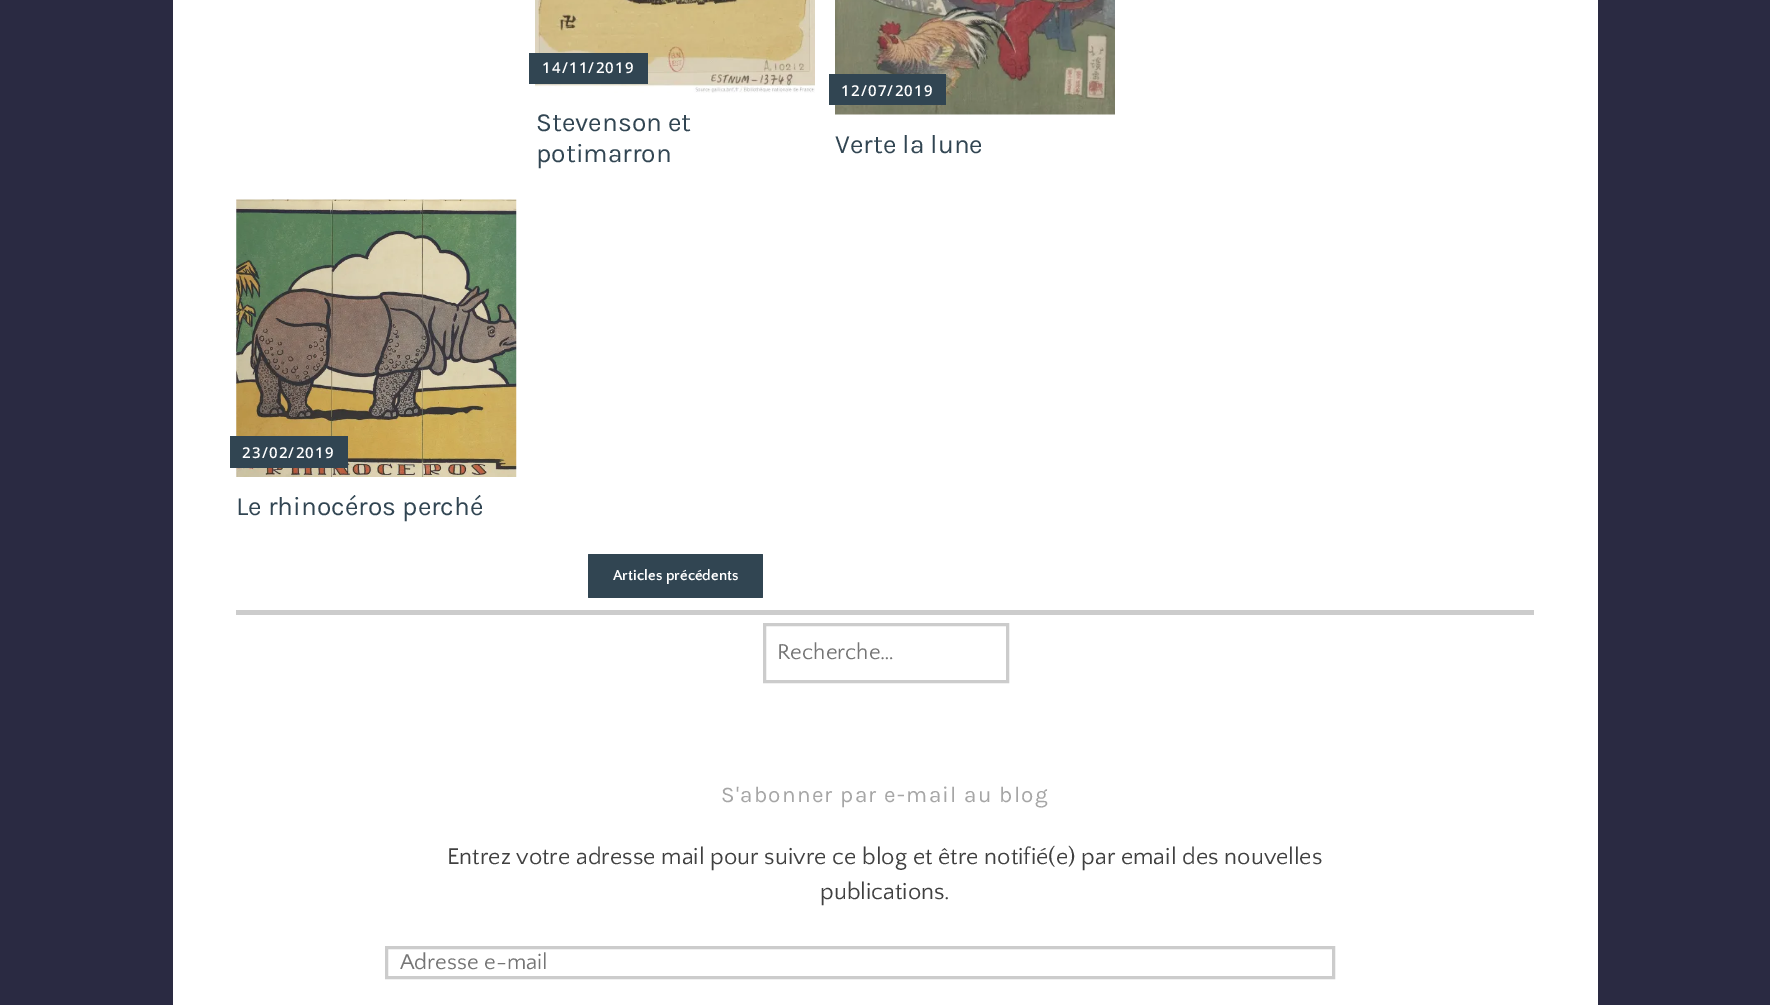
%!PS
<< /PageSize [1770 1005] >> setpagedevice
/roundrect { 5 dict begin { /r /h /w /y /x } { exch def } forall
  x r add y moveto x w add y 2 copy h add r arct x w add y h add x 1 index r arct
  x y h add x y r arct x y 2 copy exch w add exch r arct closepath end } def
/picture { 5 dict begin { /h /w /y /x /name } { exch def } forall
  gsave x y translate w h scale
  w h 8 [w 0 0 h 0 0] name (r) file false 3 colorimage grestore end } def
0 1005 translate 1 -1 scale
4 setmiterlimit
0.165 0.165 0.259 setrgbcolor
0 0 1770 1005 rectfill
1 setgray
173 0 1425 1005 rectfill
(img1.rgb) 535 0 280 93 picture
0.192 0.271 0.322 setrgbcolor
529 53 119 31 rectfill
/OpenSans-SemiBold [15 0 0 -15 0 0] selectfont
1 setgray
542 73 moveto 1.25 0 (14/11/2019) ashow
/Karla-Regular [26.25 0 0 -26.25 0 0] selectfont
0.192 0.271 0.322 setrgbcolor
536 131 moveto (Stevenson et) show
536 162 moveto (potimarron) show
(img2.rgb) 835 0 280 115 picture
829 74 117 31 rectfill
/OpenSans-SemiBold [15 0 0 -15 0 0] selectfont
1 setgray
841 96 moveto 1.25 0 (12/07/2019) ashow
/Karla-Regular [26.25 0 0 -26.25 0 0] selectfont
0.192 0.271 0.322 setrgbcolor
835 153 moveto (Verte la lune) show
(img3.rgb) 236 199 281 278 picture
230 436 118 32 rectfill
/OpenSans-SemiBold [15 0 0 -15 0 0] selectfont
1 setgray
242 458 moveto 1.25 0 (23/02/2019) ashow
/Karla-Regular [26.25 0 0 -26.25 0 0] selectfont
0.192 0.271 0.322 setrgbcolor
236 515 moveto (Le rhinocéros perché) show
588 554 175 44 1 roundrect fill
/QuattrocentoSans-Bold [15 0 0 -15 0 0] selectfont
1 setgray
613 580 moveto (Articles précédents) show
0.8 setgray
236 610 1298 5 rectfill
3 setlinewidth
764.5 624.5 243 57 rectstroke
/QuattrocentoSans-Regular [22.5 0 0 -22.5 0 0] selectfont
0.459 setgray
777 659 moveto (Recherche…) show
/Karla-Regular [22.5 0 0 -22.5 0 0] selectfont
0.651 setgray
721 802 moveto 1.25 0 (S'abonner par e-mail au blog) ashow
/QuattrocentoSans-Regular [23.75 0 0 -23.75 0 0] selectfont
0.251 setgray
447 864 moveto (Entrez votre adresse mail pour suivre ce blog et être notifié\(e\) par email des nouvelles) show
820 899 moveto (publications.) show
0.8 setgray
386.5 947.5 947 30 rectstroke
/QuattrocentoSans-Regular [22.5 0 0 -22.5 0 0] selectfont
0.459 setgray
400 969 moveto (Adresse e-mail) show
showpage
